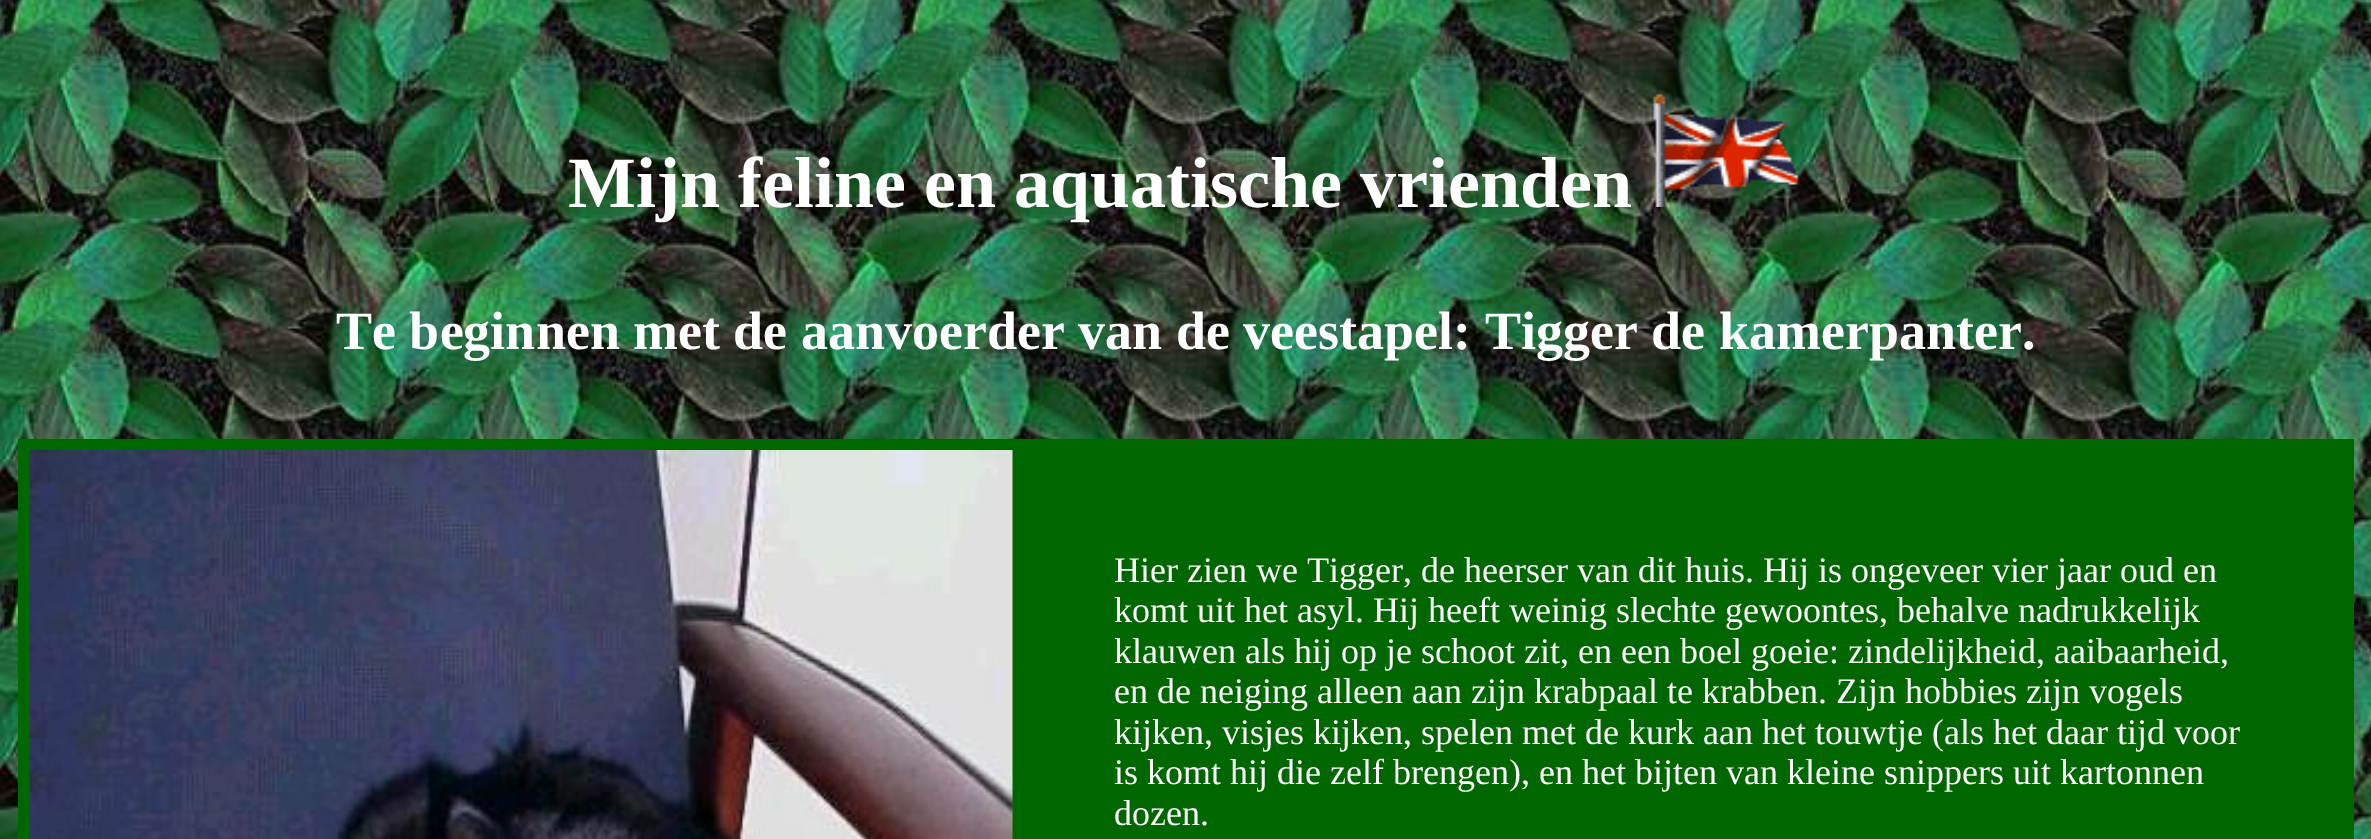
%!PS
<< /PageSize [2371 839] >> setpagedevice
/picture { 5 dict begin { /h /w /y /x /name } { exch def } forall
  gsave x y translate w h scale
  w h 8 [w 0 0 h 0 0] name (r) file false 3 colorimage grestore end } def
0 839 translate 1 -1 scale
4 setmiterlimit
1 setgray
0 0 2371 839 rectfill
(img1.rgb) 0 0 2371 839 picture
/LiberationSerif-Bold [72 0 0 -72 0 0] selectfont
568 207 moveto (Mijn feline en aquatische vrienden) show
(img2.rgb) 1653 94 146 113 picture
/LiberationSerif-Bold [54 0 0 -54 0 0] selectfont
336 349 moveto (Te beginnen met de aanvoerder van de veestapel: Tigger de kamerpanter.) show
0 0.4 0 setrgbcolor
18 439 2336 400 rectfill
(img3.rgb) 29 450 984 389 picture
/LiberationSerif-Regular [36 0 0 -36 0 0] selectfont
1 setgray
1114 582 moveto (Hier zien we Tigger, de heerser van dit huis. Hij is ongeveer vier jaar oud en) show
1114 622 moveto (komt uit het asyl. Hij heeft weinig slechte gewoontes, behalve nadrukkelijk) show
1114 663 moveto (klauwen als hij op je schoot zit, en een boel goeie: zindelijkheid, aaibaarheid,) show
1114 703 moveto (en de neiging alleen aan zijn krabpaal te krabben. Zijn hobbies zijn vogels) show
1114 744 moveto (kijken, visjes kijken, spelen met de kurk aan het touwtje \(als het daar tijd voor) show
1114 784 moveto (is komt hij die zelf brengen\), en het bijten van kleine snippers uit kartonnen) show
1114 825 moveto (dozen.) show
showpage
